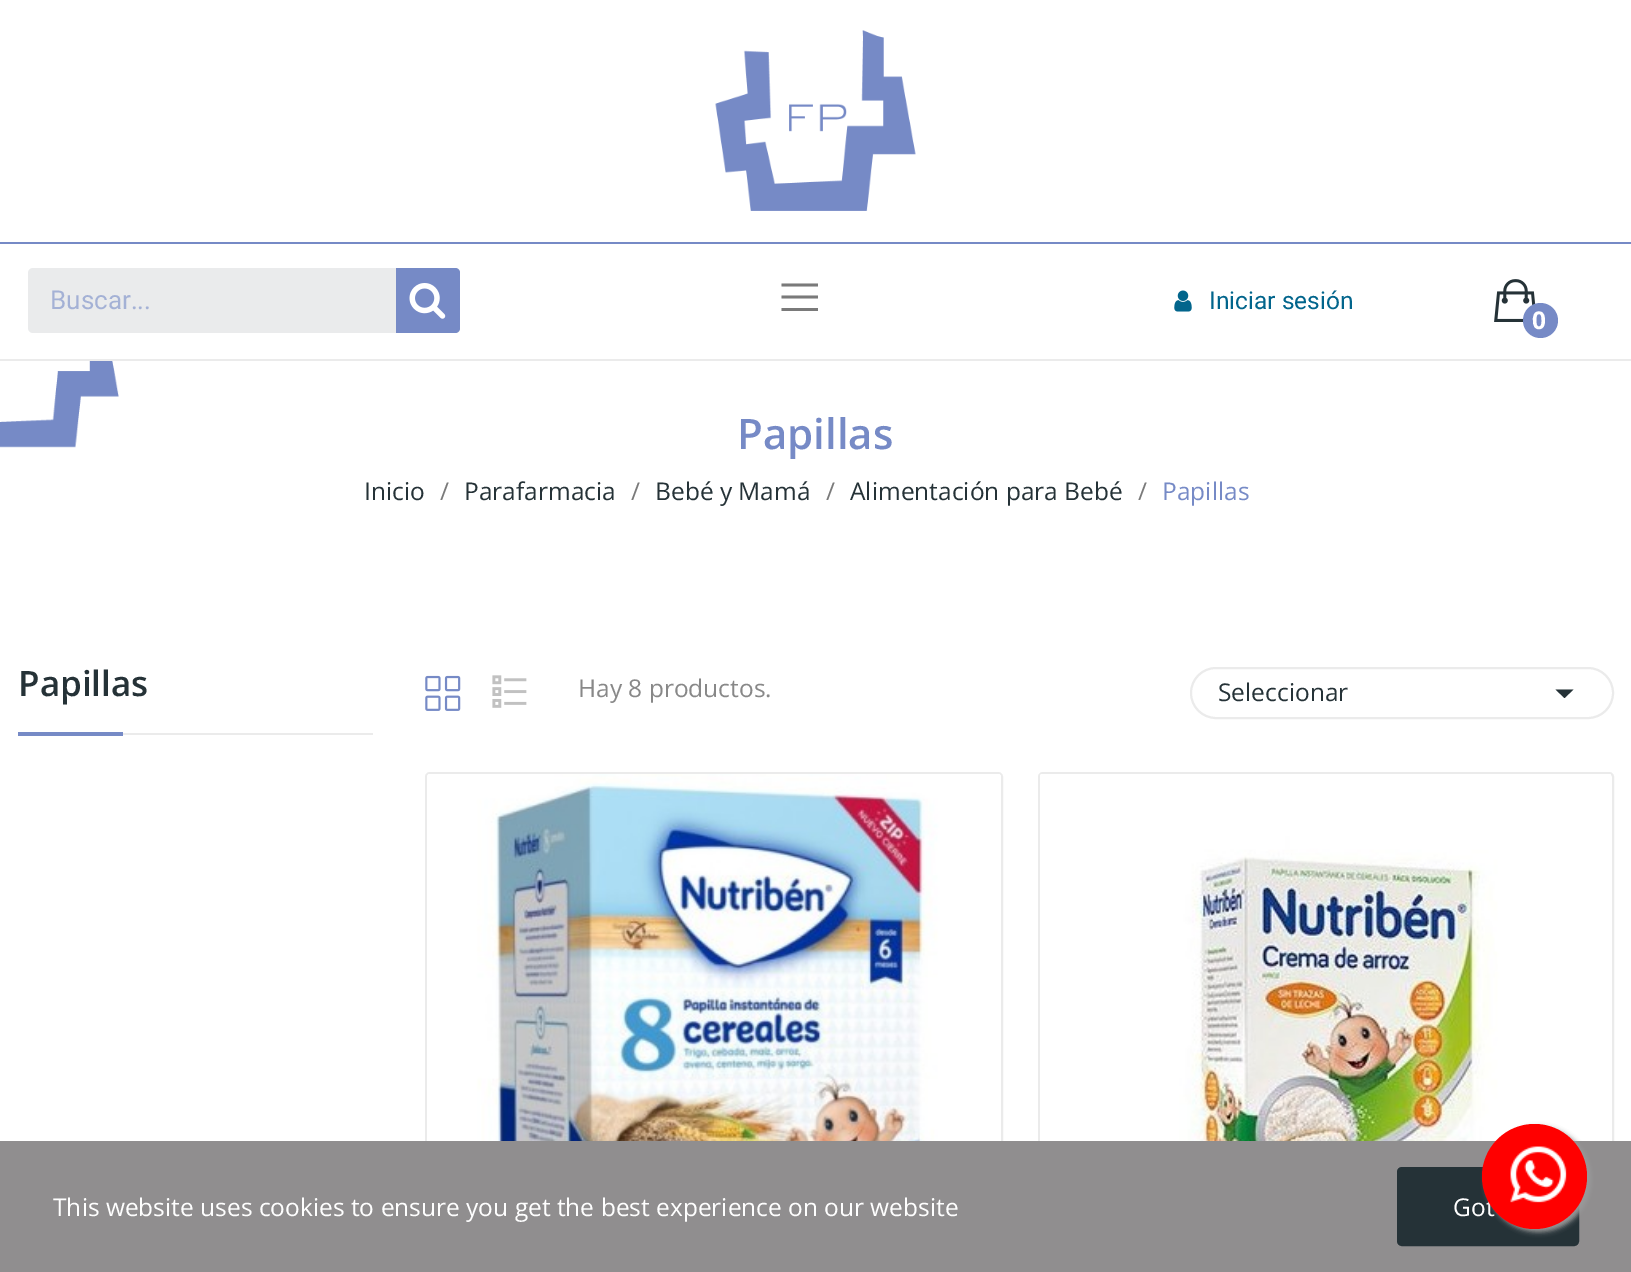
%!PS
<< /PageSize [1631 1272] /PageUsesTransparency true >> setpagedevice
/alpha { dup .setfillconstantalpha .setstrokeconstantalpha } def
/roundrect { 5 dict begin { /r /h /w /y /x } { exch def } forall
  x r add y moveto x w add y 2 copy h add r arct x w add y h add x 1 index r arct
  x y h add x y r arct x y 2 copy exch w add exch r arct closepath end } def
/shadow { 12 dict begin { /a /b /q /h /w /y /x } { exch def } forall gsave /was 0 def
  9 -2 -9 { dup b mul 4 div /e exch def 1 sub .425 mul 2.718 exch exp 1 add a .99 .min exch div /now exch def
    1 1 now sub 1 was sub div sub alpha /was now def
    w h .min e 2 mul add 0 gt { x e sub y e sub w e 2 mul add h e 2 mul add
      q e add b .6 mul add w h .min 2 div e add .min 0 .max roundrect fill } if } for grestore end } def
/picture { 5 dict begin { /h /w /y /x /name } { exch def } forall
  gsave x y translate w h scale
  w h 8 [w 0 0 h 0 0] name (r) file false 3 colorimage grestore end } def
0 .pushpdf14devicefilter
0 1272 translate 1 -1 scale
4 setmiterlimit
1 setgray
0 0 1631 1272 rectfill
0.922 setgray
0 359 1631 2 rectfill
(img1.rgb) 715 30 201 181 picture
0.463 0.541 0.776 setrgbcolor
0 242 1631 2 rectfill
0.918 0.922 0.925 setrgbcolor
28 268 432 65 5 roundrect fill
/Roboto-Regular [26 0 0 -26 0 0] selectfont
0.643 0.694 0.835 setrgbcolor
50 309 moveto (Buscar...) show
0.463 0.541 0.776 setrgbcolor
newpath 396 268 moveto 455 268 lineto 458 268 460 270 460 273 curveto 460 328 lineto 460 331 458 333 455 333 curveto 396 333 lineto closepath fill
(img2.rgb) 409 283 37 36 picture
0.478 setgray
newpath 781.5 283.5 moveto 781.5 286.5 lineto 818 286.5 lineto 818 283.5 lineto closepath 781.5 295.5 moveto 781.5 298.5 lineto 818 298.5 lineto 818 295.5 lineto closepath 781.5 308 moveto 781.5 311 lineto 818 311 lineto 818 308 lineto closepath fill
(img3.rgb) 1174 290 18 22 picture
/Roboto-Regular [24.5 0 0 -24.5 0 0] selectfont
0.008 0.396 0.549 setrgbcolor
1209 309 moveto (Iniciar sesión) show
(img4.rgb) 1494 279 42 43 picture
0.463 0.541 0.776 setrgbcolor
newpath 1540.5 320.5 17.5 0 360 arc closepath fill
/OpenSans-Bold [24.5 0 0 -24.5 0 0] selectfont
1 setgray
1532 329 moveto (0) show
(img5.rgb) 0 361 119 87 picture
/OpenSans-SemiBold [42 0 0 -42 0 0] selectfont
0.463 0.541 0.776 setrgbcolor
737 449 moveto (Papillas) show
/OpenSans-Regular [24.5 0 0 -24.5 0 0] selectfont
0.145 0.196 0.216 setrgbcolor
364 500 moveto (Inicio) show
0.478 setgray
440 500 moveto (/) show
0.145 0.196 0.216 setrgbcolor
464 500 moveto (Parafarmacia) show
0.478 setgray
631 500 moveto (/) show
0.145 0.196 0.216 setrgbcolor
655 500 moveto (Bebé y Mamá) show
0.478 setgray
826 500 moveto (/) show
0.145 0.196 0.216 setrgbcolor
850 500 moveto (Alimentación para Bebé) show
0.478 setgray
1138 500 moveto (/) show
0.463 0.541 0.776 setrgbcolor
1162 500 moveto (Papillas) show
0.922 setgray
123 733 250 2 rectfill
/OpenSans-SemiBold [35 0 0 -35 0 0] selectfont
0.145 0.196 0.216 setrgbcolor
18 696 moveto (Papillas) show
0.463 0.541 0.776 setrgbcolor
18 732 105 4 rectfill
(img6.rgb) 425 675 36 36 picture
(img7.rgb) 492 675 35 33 picture
/OpenSans-Regular [24.5 0 0 -24.5 0 0] selectfont
0.533 setgray
578 697 moveto (Hay 8 productos.) show
0.922 setgray
2 setlinewidth
1191 668 422 50 25 roundrect stroke
0.145 0.196 0.216 setrgbcolor
1218 701 moveto (Seleccionar) show
newpath 1555.5 689.5 moveto 1573.5 689.5 lineto 1564.5 698 lineto closepath fill
0.922 setgray
426 773 576 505 4 roundrect stroke
(img8.rgb) 427 774 574 367 picture
1039 773 574 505 4 roundrect stroke
(img9.rgb) 1040 774 571 367 picture
0.565 0.557 0.561 setrgbcolor
0 1141 1631 131 rectfill
1 setgray
53 1216 moveto (This website uses cookies to ensure you get the best experience on our website) show
0.145 0.196 0.216 setrgbcolor
1399 1169 178 75 3 roundrect gsave fill grestore
4 setlinewidth
stroke
1 setgray
1453 1216 moveto (Got) show
0.6 setgray
1486 1127 105 105 52.5 2.5 1 shadow
1 0 0 setrgbcolor
newpath 1534.5 1176.5 52.5 0 360 arc closepath fill
(img10.rgb) 1510 1146 57 57 picture
.poppdf14devicefilter showpage
